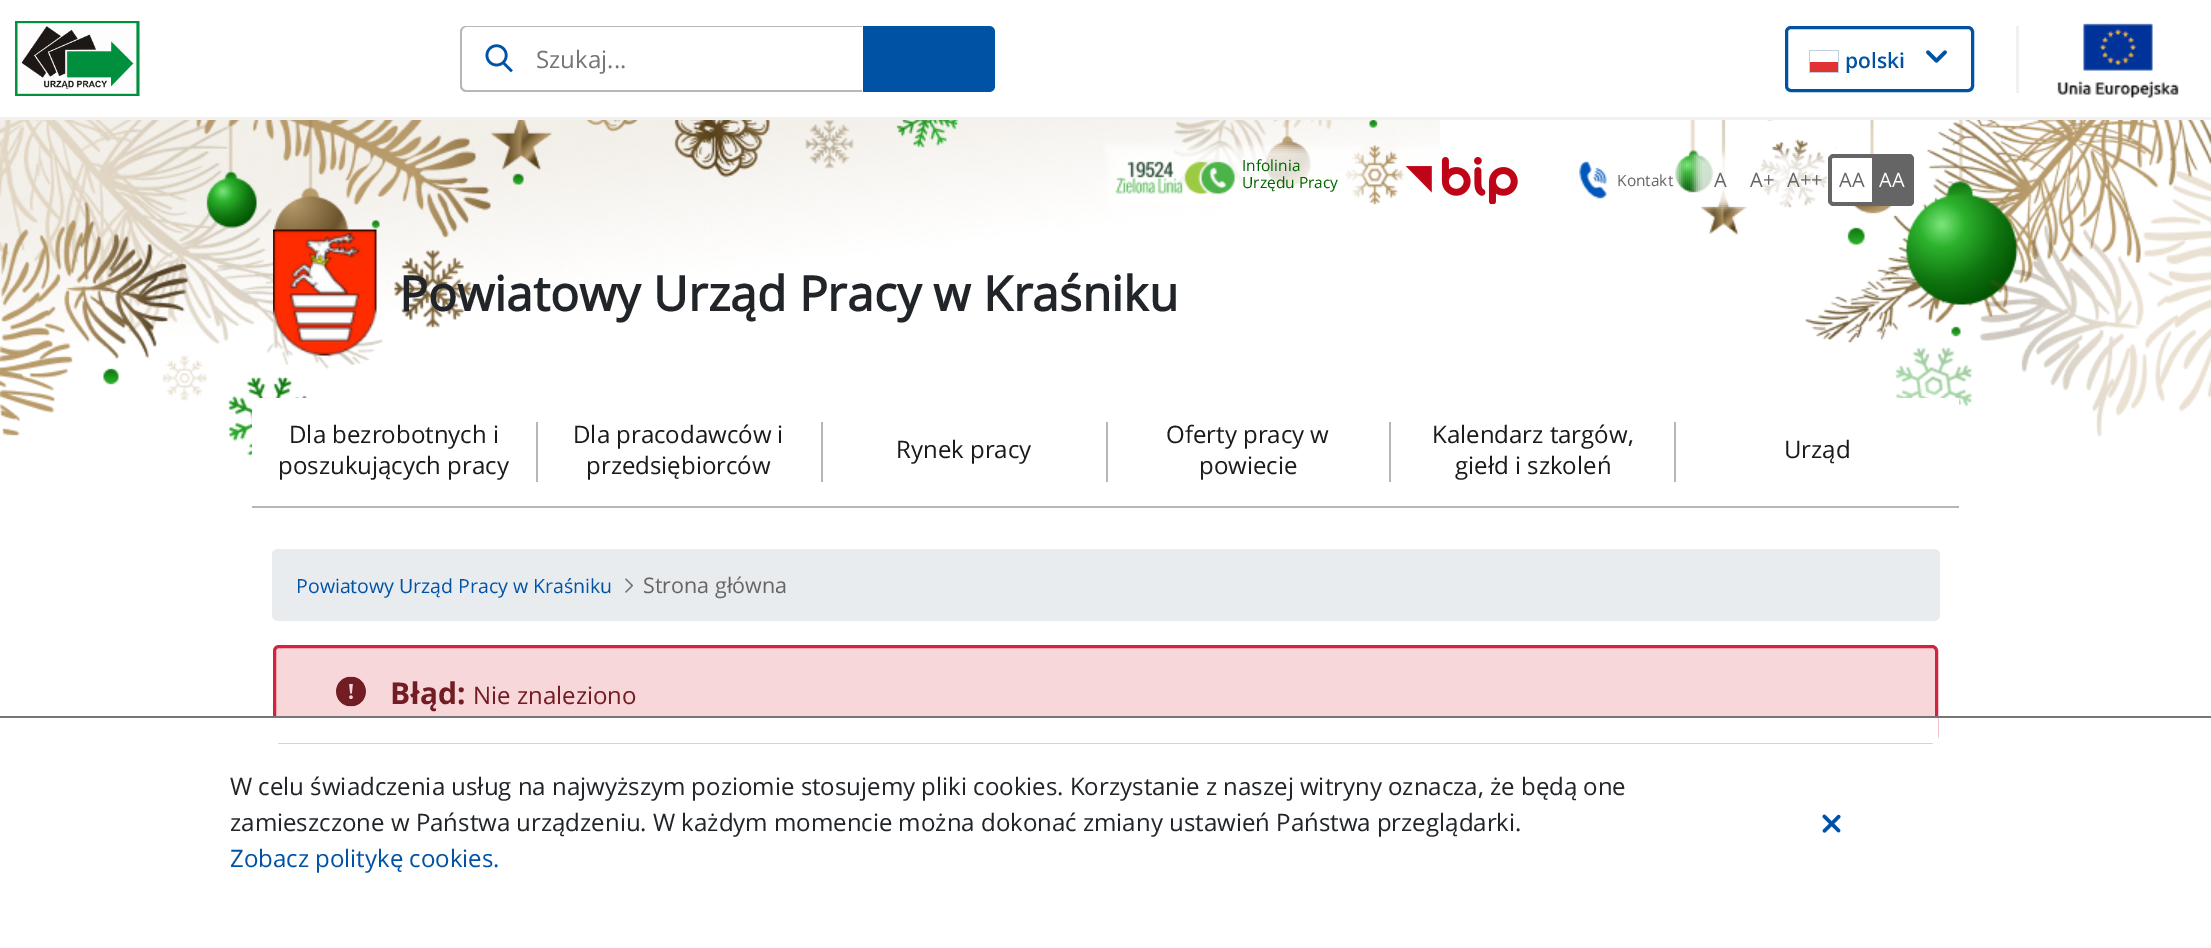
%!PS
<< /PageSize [2211 948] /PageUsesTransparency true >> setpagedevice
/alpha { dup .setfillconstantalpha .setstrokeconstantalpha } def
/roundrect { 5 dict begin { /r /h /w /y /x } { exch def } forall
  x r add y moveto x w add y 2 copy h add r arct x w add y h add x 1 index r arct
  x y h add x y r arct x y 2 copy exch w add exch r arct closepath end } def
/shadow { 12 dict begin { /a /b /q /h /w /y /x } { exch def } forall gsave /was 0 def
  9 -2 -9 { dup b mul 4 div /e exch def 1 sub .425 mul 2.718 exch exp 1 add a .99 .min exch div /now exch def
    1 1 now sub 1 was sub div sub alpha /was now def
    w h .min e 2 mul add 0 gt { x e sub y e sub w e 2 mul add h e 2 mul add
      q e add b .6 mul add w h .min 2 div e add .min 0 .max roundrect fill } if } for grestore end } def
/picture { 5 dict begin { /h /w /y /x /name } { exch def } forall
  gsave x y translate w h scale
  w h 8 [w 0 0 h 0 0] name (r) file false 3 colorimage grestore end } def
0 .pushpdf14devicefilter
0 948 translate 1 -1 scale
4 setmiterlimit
1 setgray
0 0 2211 948 rectfill
0.945 setgray
0 117 2211 3 rectfill
(img1.rgb) 15 21 125 75 picture
(img2.rgb) 485 44 28 29 picture
0.718 setgray
newpath 466 26 moveto 862 26 lineto 862 92 lineto 466 92 lineto 463 92 460 89 460 86 curveto 460 32 lineto 460 28 463 26 466 26 curveto closepath 466 27 moveto 862 27 lineto 862 90 lineto 466 90 lineto 464 90 462 88 462 86 curveto 462 32 lineto 462 29 464 27 466 27 curveto closepath eofill
/OpenSans-Regular [24 0 0 -24 0 0] selectfont
0.463 setgray
536 68 moveto (Szukaj...) show
0 0.322 0.647 setrgbcolor
newpath 863 26 moveto 989 26 lineto 992.5 26 995 28.5 995 32 curveto 995 86 lineto 995 89.5 992.5 92 989 92 curveto 863 92 lineto closepath fill
3 setlinewidth
1786.5 27.5 186 63 4.5 roundrect stroke
/OpenSans-SemiBold [21 0 0 -21 0 0] selectfont
1845 68 moveto (polski) show
0.753 0.812 0.847 setrgbcolor
1809 50 30 23 rectfill
1 setgray
1810 51 28 11 rectfill
0.878 0.196 0.196 setrgbcolor
1810 62 28 10 rectfill
(img3.rgb) 1926 50 21 13 picture
0.945 setgray
2016 26 3 67 rectfill
(img4.rgb) 2057 23 122 75 picture
(img9.rgb) 0 120 1440 340 picture
gsave
newpath 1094 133 moveto 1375 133 lineto 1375 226 lineto 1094 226 lineto closepath 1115 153 moveto 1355 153 lineto 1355 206 lineto 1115 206 lineto closepath eoclip newpath
1 setgray
1107 146 255 67 0 4 0.8 shadow
grestore
0.8 alpha
1 setgray
1115 153 240 52 rectfill
1 alpha
(img5.rgb) 1115 161 120 34 picture
/OpenSans-Regular [15.5 0 0 -15.5 0 0] selectfont
0.004 0.396 0.004 setrgbcolor
1242 171 moveto (Infolinia) show
1242 188 moveto (Urzędu Pracy) show
(img10.rgb) 1440 120 771 317 picture
gsave
newpath 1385 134 moveto 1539 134 lineto 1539 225 lineto 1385 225 lineto closepath 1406 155 moveto 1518 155 lineto 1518 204 lineto 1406 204 lineto closepath eoclip newpath
1 setgray
1398 147 128 65 0 4 0.8 shadow
grestore
0.8 alpha
1 setgray
1406 155 34 15 rectfill
1 alpha
(img6.rgb) 1406 157 112 47 picture
gsave
newpath 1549 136 moveto 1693 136 lineto 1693 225 lineto 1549 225 lineto closepath 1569 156 moveto 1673 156 lineto 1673 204 lineto 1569 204 lineto closepath eoclip newpath
1562 149 118 63 0 4 0.8 shadow
grestore
(img7.rgb) 1579 161 28 38 picture
0.396 setgray
1617 186 moveto (Kontakt) show
gsave
newpath 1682 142 moveto 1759 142 lineto 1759 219 lineto 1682 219 lineto closepath 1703 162 moveto 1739 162 lineto 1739 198 lineto 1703 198 lineto closepath eoclip newpath
1 setgray
1695 155 51 51 0 4 0.8 shadow
grestore
0.8 alpha
1 setgray
1703 162 24 36 rectfill
/OpenSans-Regular [20 0 0 -20 0 0] selectfont
1 alpha
0.396 setgray
1714 187 moveto (A) show
gsave
newpath 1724 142 moveto 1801 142 lineto 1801 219 lineto 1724 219 lineto closepath 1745 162 moveto 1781 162 lineto 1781 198 lineto 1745 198 lineto closepath eoclip newpath
1 setgray
1737 155 51 51 0 4 0.8 shadow
grestore
0.8 alpha
1 setgray
1759 162 22 36 rectfill
1 alpha
0.396 setgray
1750 187 moveto (A+) show
gsave
newpath 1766 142 moveto 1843 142 lineto 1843 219 lineto 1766 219 lineto closepath 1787 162 moveto 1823 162 lineto 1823 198 lineto 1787 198 lineto closepath eoclip newpath
1 setgray
1779 155 51 51 0 4 0.8 shadow
grestore
0.8 alpha
1 setgray
1787 162 36 36 rectfill
1 alpha
0.396 setgray
1787 187 moveto (A++) show
1 setgray
newpath 1834 155 moveto 1872 155 lineto 1872 206 lineto 1834 206 lineto 1831 206 1829 204 1829 201 curveto 1829 160 lineto 1829 157 1831 155 1834 155 curveto closepath fill
0.396 setgray
newpath 1833 154 moveto 1872 154 lineto 1872 206 lineto 1833 206 lineto 1831 206 1828 203 1828 201 curveto 1828 159 lineto 1828 157 1831 154 1833 154 curveto closepath 1833 158 moveto 1872 158 lineto 1872 202 lineto 1833 202 lineto 1832 202 1832 202 1832 201 curveto 1832 159 lineto 1832 158 1832 158 1833 158 curveto closepath eofill
1839 187 moveto (AA) show
newpath 1872 155 moveto 1909 155 lineto 1912 155 1914 157 1914 160 curveto 1914 201 lineto 1914 204 1912 206 1909 206 curveto 1872 206 lineto closepath fill
newpath 1872 154 moveto 1910 154 lineto 1912 154 1914 157 1914 159 curveto 1914 201 lineto 1914 203 1912 206 1910 206 curveto 1872 206 lineto closepath 1872 158 moveto 1910 158 lineto 1910 158 1911 158 1911 159 curveto 1911 201 lineto 1911 202 1910 202 1910 202 curveto 1872 202 lineto closepath eofill
1 setgray
1879 187 moveto (AA) show
(img8.rgb) 273 229 104 127 picture
/OpenSans-Bold [48 0 0 -48 0 0] selectfont
0.129 0.145 0.161 setrgbcolor
399 311 moveto (Powiatowy Urząd Pracy w Kraśniku) show
0.718 setgray
252 506 1707 2 rectfill
1 setgray
252 398 1707 62 rectfill
/OpenSans-Regular [24 0 0 -24 0 0] selectfont
0.106 setgray
289 443 moveto (Dla bezrobotnych i) show
278 474 moveto (poszukujących pracy) show
0.718 setgray
536 422 2 60 rectfill
0.106 setgray
573 443 moveto (Dla pracodawców i) show
586 474 moveto (przedsiębiorców) show
0.718 setgray
821 422 2 60 rectfill
0.106 setgray
896 458 moveto (Rynek pracy) show
0.718 setgray
1106 422 2 60 rectfill
0.106 setgray
1166 443 moveto (Oferty pracy w) show
1199 474 moveto (powiecie) show
0.718 setgray
1389 422 2 60 rectfill
0.106 setgray
1432 443 moveto (Kalendarz targów,) show
1455 474 moveto (giełd i szkoleń) show
0.718 setgray
1674 422 2 60 rectfill
0.106 setgray
1784 458 moveto (Urząd) show
0.914 0.925 0.937 setrgbcolor
272 549 1668 72 6 roundrect fill
/OpenSans-Regular [19.5 0 0 -19.5 0 0] selectfont
0 0.322 0.647 setrgbcolor
296 593 moveto (Powiatowy Urząd Pracy w Kraśniku) show
(img11.rgb) 625 578 8 15 picture
/OpenSans-Regular [21.5 0 0 -21.5 0 0] selectfont
0.396 setgray
643 593 moveto (Strona główna) show
0.973 0.843 0.855 setrgbcolor
274.5 646.5 1662 95 4.5 roundrect gsave fill grestore
0.835 0.137 0.247 setrgbcolor
stroke
(img12.rgb) 336 676 30 31 picture
/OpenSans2-Bold [30 0 0 -30 0 0] selectfont
0.447 0.11 0.141 setrgbcolor
390 704 moveto (Błąd:) show
/OpenSans-Regular [24 0 0 -24 0 0] selectfont
473 704 moveto (Nie znaleziono) show
1 setgray
273 718 1665 25 rectfill
0.463 setgray
0 716 2211 2 rectfill
0.129 0.145 0.161 setrgbcolor
230 795 moveto (W celu świadczenia usług na najwyższym poziomie stosujemy pliki cookies. Korzystanie z naszej witryny oznacza, że będą one) show
230 831 moveto (zamieszczone w Państwa urządzeniu. W każdym momencie można dokonać zmiany ustawień Państwa przeglądarki.) show
0 0.322 0.647 setrgbcolor
230 867 moveto (Zobacz politykę cookies.) show
(img13.rgb) 1822 814 19 19 picture
.poppdf14devicefilter showpage
